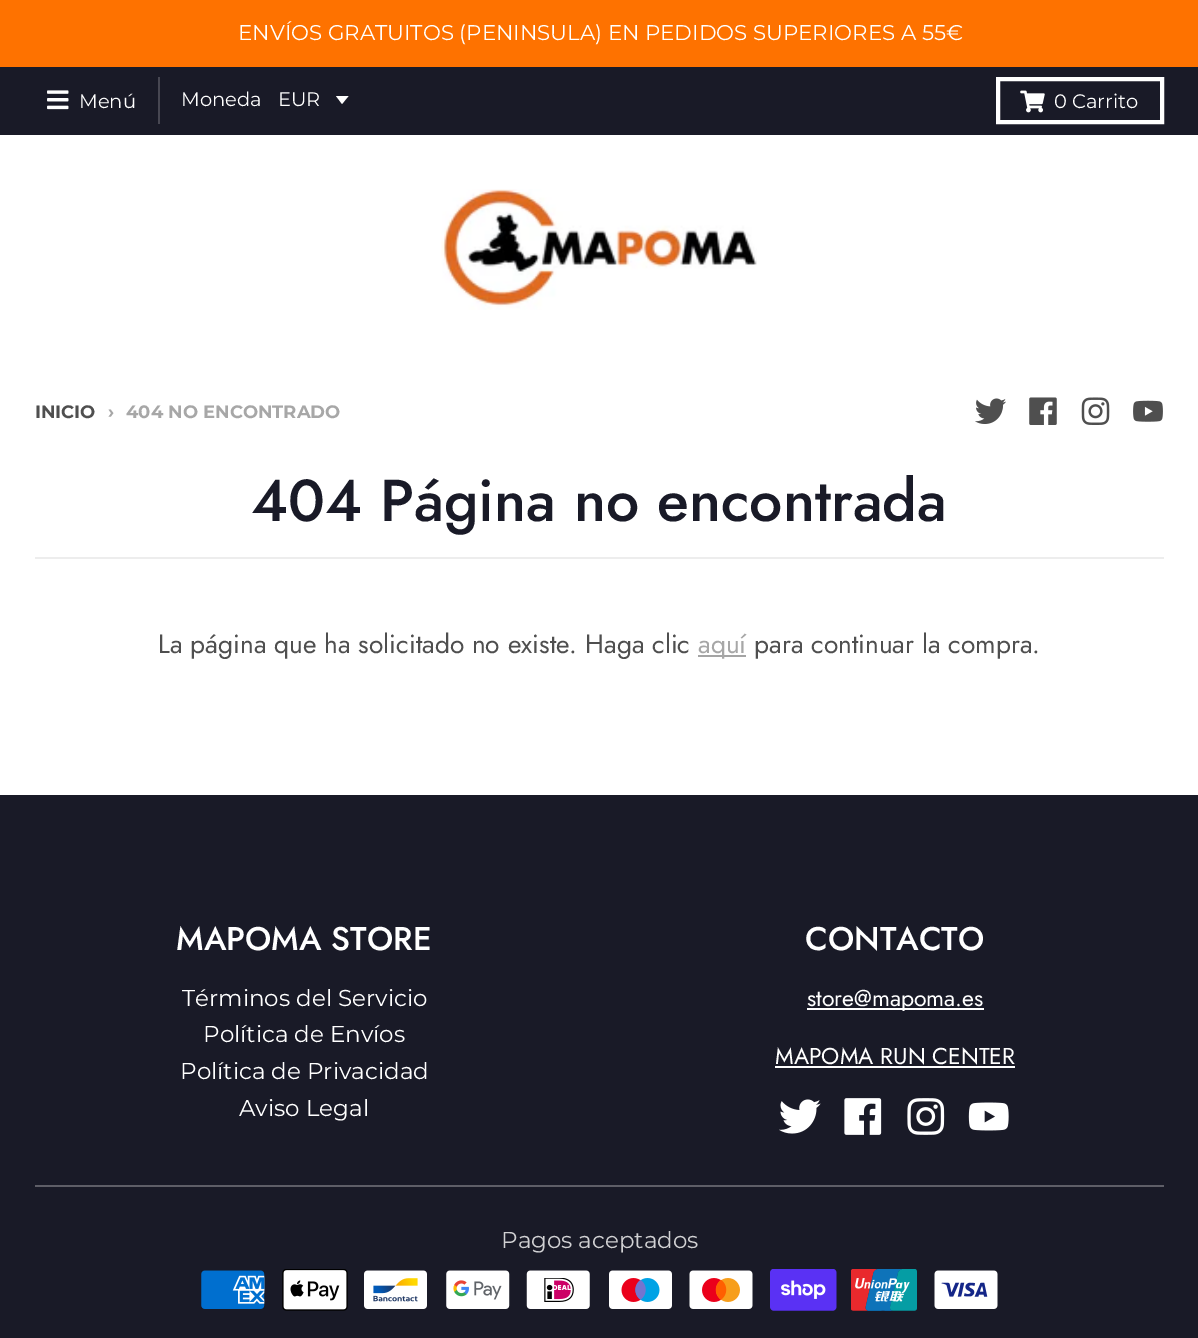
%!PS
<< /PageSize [1198 1338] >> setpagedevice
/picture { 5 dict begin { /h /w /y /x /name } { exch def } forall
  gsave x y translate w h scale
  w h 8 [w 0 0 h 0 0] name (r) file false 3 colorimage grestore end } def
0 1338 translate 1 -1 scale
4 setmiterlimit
1 setgray
0 0 1198 1338 rectfill
0.996 0.447 0 setrgbcolor
0 0 1198 67 rectfill
/Montserrat-Regular [21.35 0 0 -21.35 0 0] selectfont
1 setgray
238 40 moveto (ENVÍOS GRATUITOS \(PENINSULA\) EN PEDIDOS SUPERIORES A 55€) show
0.098 0.102 0.153 setrgbcolor
0 67 1198 68 rectfill
0.278 0.278 0.322 setrgbcolor
158 77 2 47 rectfill
(img1.rgb) 47 90 22 20 picture
/Montserrat-Regular [19.5 0 0 -19.5 0 0] selectfont
1 setgray
79 108 moveto (Menú) show
181 106 moveto (Moneda) show
newpath 336 96 moveto 342 104 lineto 348.5 96 lineto closepath fill
278 106 moveto (EUR) show
4 setlinewidth
998 79 164 43 rectstroke
(img2.rgb) 1020 90 25 23 picture
1054 108 moveto (0 Carrito) show
(img3.rgb) 441 189 316 121 picture
/Montserrat-Bold [18 0 0 -18 0 0] selectfont
0.31 setgray
35 418 moveto (INICIO) show
0.655 setgray
108 418 moveto (›) show
126 418 moveto (404 NO ENCONTRADO) show
(img4.rgb) 975 398 31 26 picture
(img5.rgb) 1029 397 28 28 picture
(img6.rgb) 1081 397 29 28 picture
(img7.rgb) 1133 400 30 22 picture
0.929 setgray
35 557 1129 2 rectfill
/Jost-Medium [59 0 0 -59 0 0] selectfont
0.098 0.102 0.153 setrgbcolor
251 521 moveto (404 Página no encontrada) show
/Jost-Regular [26.25 0 0 -26.25 0 0] selectfont
0.31 setgray
158 653 moveto (La página que ha solicitado no existe. Haga clic) show
0.643 setgray
698 655 48 2 rectfill
0.655 setgray
698 653 moveto (aquí) show
0.31 setgray
754 653 moveto (para continuar la compra.) show
0.098 0.102 0.153 setrgbcolor
0 795 1198 543 rectfill
/Jost-Medium [32.75 0 0 -32.75 0 0] selectfont
1 setgray
176 950 moveto (MAPOMA STORE) show
/Montserrat-Regular [23 0 0 -23 0 0] selectfont
182 1006 moveto (Términos del Servicio) show
203 1042 moveto (Política de Envíos) show
180 1079 moveto (Política de Privacidad) show
239 1116 moveto (Aviso Legal) show
/Jost-Medium [32.75 0 0 -32.75 0 0] selectfont
805 950 moveto (CONTACTO) show
807 1008 177 2 rectfill
/Jost-Regular [23 0 0 -23 0 0] selectfont
807 1006 moveto (store@mapoma.es) show
775 1064 moveto (MAPOMA RUN CENTER) show
775 1066 240 2 rectfill
(img8.rgb) 779 1099 42 35 picture
(img9.rgb) 844 1098 38 37 picture
(img10.rgb) 907 1098 38 37 picture
(img11.rgb) 968 1102 41 29 picture
0.369 0.369 0.404 setrgbcolor
35 1185 1129 2 rectfill
/Montserrat-Regular [23 0 0 -23 0 0] selectfont
0.82 0.82 0.827 setrgbcolor
501 1248 moveto (Pagos aceptados) show
(img12.rgb) 201 1270 64 39 picture
(img13.rgb) 282 1269 66 42 picture
(img14.rgb) 364 1270 63 39 picture
(img15.rgb) 446 1270 64 39 picture
(img16.rgb) 526 1270 64 39 picture
(img17.rgb) 609 1270 63 39 picture
(img18.rgb) 689 1270 64 39 picture
(img19.rgb) 770 1269 67 42 picture
(img20.rgb) 851 1269 66 42 picture
(img21.rgb) 934 1270 64 39 picture
showpage
